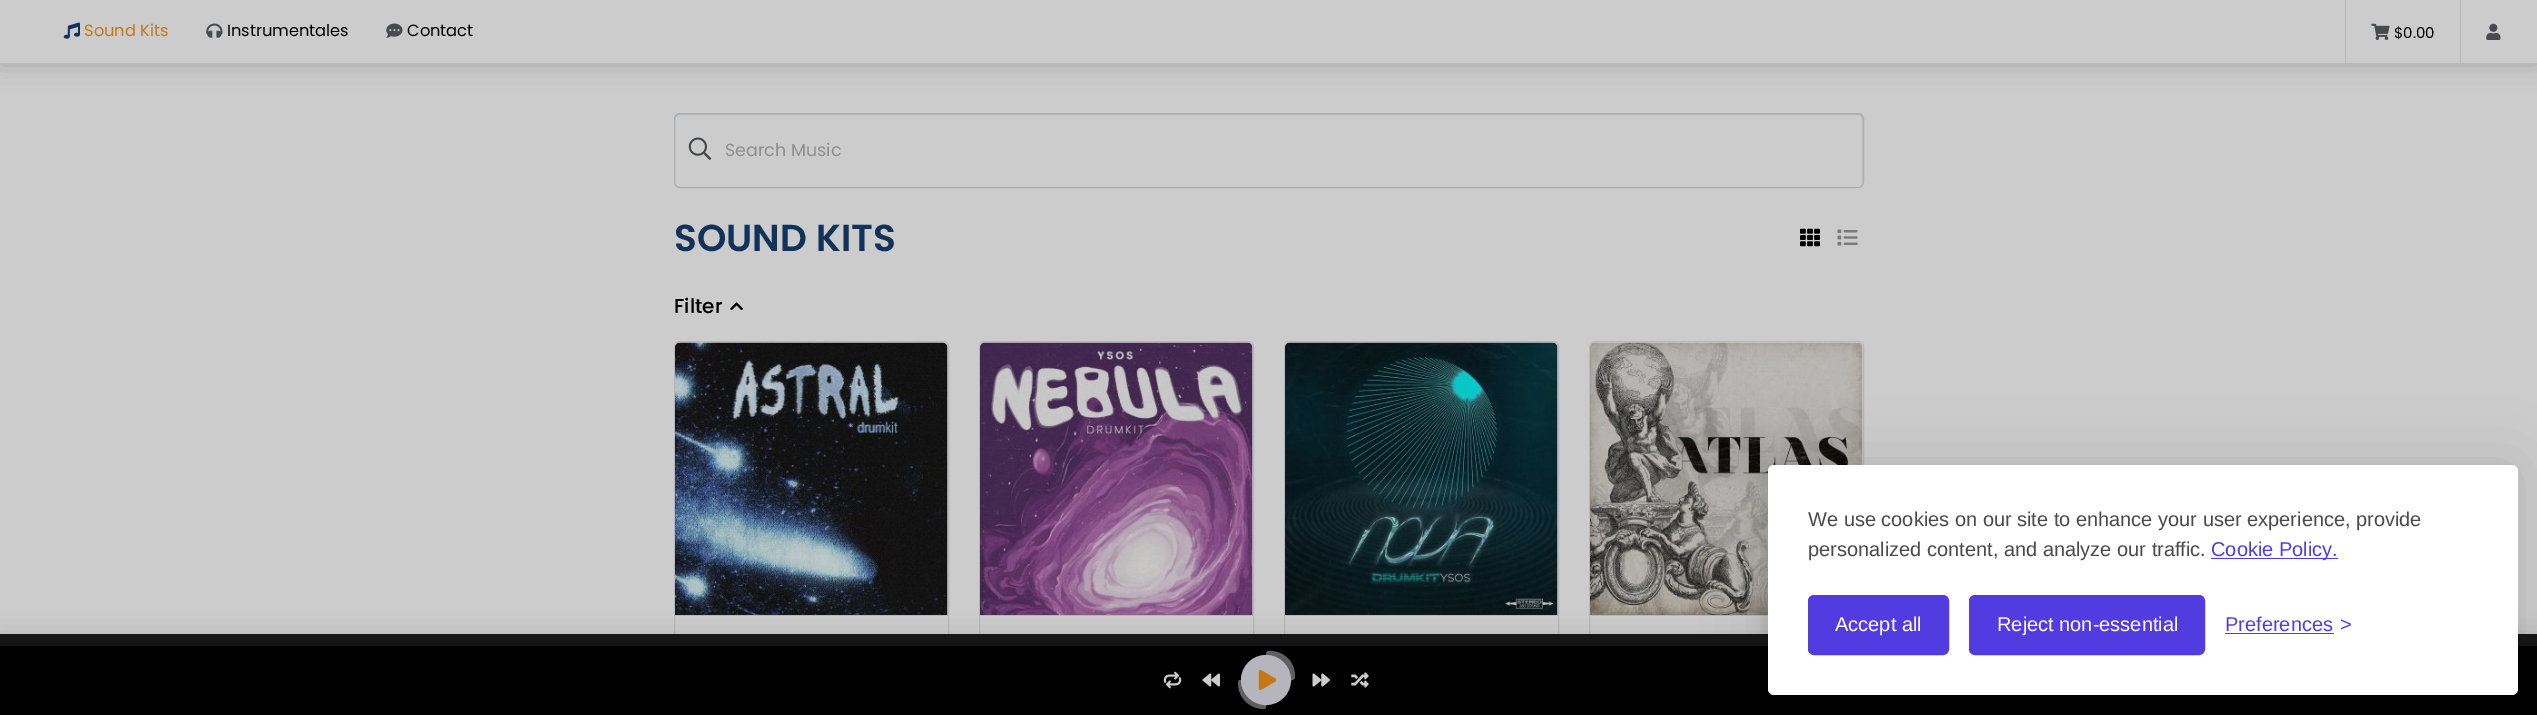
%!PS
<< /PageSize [2537 715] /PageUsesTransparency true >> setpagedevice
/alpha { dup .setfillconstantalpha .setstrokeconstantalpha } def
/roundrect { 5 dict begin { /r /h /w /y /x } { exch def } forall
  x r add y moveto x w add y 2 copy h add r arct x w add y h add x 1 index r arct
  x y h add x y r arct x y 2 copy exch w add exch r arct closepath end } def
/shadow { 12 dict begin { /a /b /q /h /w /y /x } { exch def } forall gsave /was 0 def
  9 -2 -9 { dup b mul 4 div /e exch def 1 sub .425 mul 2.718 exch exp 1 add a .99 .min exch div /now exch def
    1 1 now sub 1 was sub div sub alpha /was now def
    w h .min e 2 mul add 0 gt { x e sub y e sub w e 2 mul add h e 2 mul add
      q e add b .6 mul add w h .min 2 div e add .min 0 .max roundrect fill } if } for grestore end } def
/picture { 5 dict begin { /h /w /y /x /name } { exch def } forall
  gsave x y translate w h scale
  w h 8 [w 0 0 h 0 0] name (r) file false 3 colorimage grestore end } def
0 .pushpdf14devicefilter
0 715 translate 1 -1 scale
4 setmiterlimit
0.8 setgray
0 0 2537 715 rectfill
0 setgray
0 1 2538 63 0 12 0.18 shadow
0.8 setgray
0 0 2537 63 rectfill
(img1.rgb) 63 22 17 17 picture
/Poppins-Regular [16.25 0 0 -16.25 0 0] selectfont
0.776 0.463 0.09 setrgbcolor
84 36 moveto (Sound Kits) show
(img2.rgb) 206 23 17 15 picture
0 setgray
227 36 moveto (Instrumentales) show
(img3.rgb) 386 23 17 15 picture
407 36 moveto (Contact) show
0.722 setgray
2345 0 1 63 rectfill
(img4.rgb) 2371 23 19 17 picture
/Poppins-Regular [15 0 0 -15 0 0] selectfont
0 setgray
2394 38 moveto ($0.00) show
0.722 setgray
2460 0 1 63 rectfill
(img5.rgb) 2486 23 15 17 picture
0.741 setgray
newpath 680 115 moveto 1858 115 lineto 1860 115 1862 117 1862 120 curveto 1862 182 lineto 1862 185 lineto 1862 184 1863 182 1863 181 curveto 1863 119 lineto 1863 116 1861 114 1858 114 curveto 680 114 lineto 677 114 675 116 675 119 curveto 675 120 lineto 675 117 677 115 680 115 curveto closepath fill
0.3 alpha
0.376 0.408 0.439 setrgbcolor
674.5 113.5 1189 74 5.5 roundrect stroke
1 alpha
(img6.rgb) 688 137 24 23 picture
/Poppins-Regular [17.5 0 0 -17.5 0 0] selectfont
0.561 setgray
725 156 moveto (Search Music) show
/Poppins-SemiBold [37.5 0 0 -37.5 0 0] selectfont
0.067 0.2 0.353 setrgbcolor
674 251 moveto (SOUND KITS) show
(img7.rgb) 1800 228 20 19 picture
(img8.rgb) 1837 229 21 17 picture
/Poppins-Medium [20 0 0 -20 0 0] selectfont
0 setgray
674 313 moveto (Filter) show
(img9.rgb) 730 302 13 9 picture
0.718 setgray
674.5 341.5 274 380 5.5 roundrect stroke
(img10.rgb) 675 342 273 273 picture
675 615 273 1 rectfill
979.5 341.5 274 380 5.5 roundrect stroke
(img11.rgb) 980 342 273 273 picture
980 615 273 1 rectfill
1284.5 341.5 274 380 5.5 roundrect stroke
(img12.rgb) 1285 342 273 273 picture
1285 615 273 1 rectfill
1589.5 341.5 274 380 5.5 roundrect stroke
(img13.rgb) 1590 342 273 273 picture
1590 615 178 1 rectfill
0 setgray
0 639 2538 75 0 12 0.18 shadow
0 646 2537 69 rectfill
0.082 setgray
0 634 2537 12 rectfill
(img14.rgb) 1163 671 19 18 picture
(img15.rgb) 1202 673 18 14 picture
0.373 0.369 0.384 setrgbcolor
newpath 1269 651 moveto 1270 651 lineto 1284 651 1295 662 1295 676 curveto 1295 677 lineto 1295 678.5 1293.5 680 1292 680 curveto 1266 680 lineto 1266 654 lineto 1266 652.5 1267.5 651 1269 651 curveto closepath fill
newpath 1240 680 moveto 1266 680 lineto 1266 707 lineto 1266 708 1265 709 1264 709 curveto 1249.5 709 1238 697.5 1238 683 curveto 1238 682 lineto 1238 681 1239 680 1240 680 curveto closepath fill
0.714 0.706 0.737 setrgbcolor
newpath 1266 680 23.5 0 360 arc closepath gsave fill grestore
3 setlinewidth
stroke
(img16.rgb) 1258 670 19 20 picture
(img17.rgb) 1312 673 18 14 picture
(img18.rgb) 1351 672 18 16 picture
0 setgray
1768 465 750 230 6 31 0.1 shadow
1761 471 750 230 6 6 0.07 shadow
1 setgray
1768 465 750 230 6 roundrect fill
/LiberationSans-Regular [20 0 0 -20 0 0] selectfont
0.294 0.286 0.294 setrgbcolor
1808 526 moveto (We use cookies on our site to enhance your user experience, provide) show
1808 556 moveto (personalized content, and analyze our traffic.) show
0.325 0.231 0.886 setrgbcolor
2211 558 127 1 rectfill
2211 556 moveto (Cookie Policy.) show
1809.5 596.5 138 57 4.5 roundrect gsave fill grestore
stroke
1 setgray
1835 631 moveto (Accept all) show
0.325 0.231 0.886 setrgbcolor
1970.5 596.5 233 57 4.5 roundrect gsave fill grestore
stroke
1 setgray
1997 631 moveto (Reject non-essential) show
0.325 0.231 0.886 setrgbcolor
2225 631 moveto (Preferences) show
2225 633 109 1 rectfill
2340 631 moveto (>) show
.poppdf14devicefilter showpage
